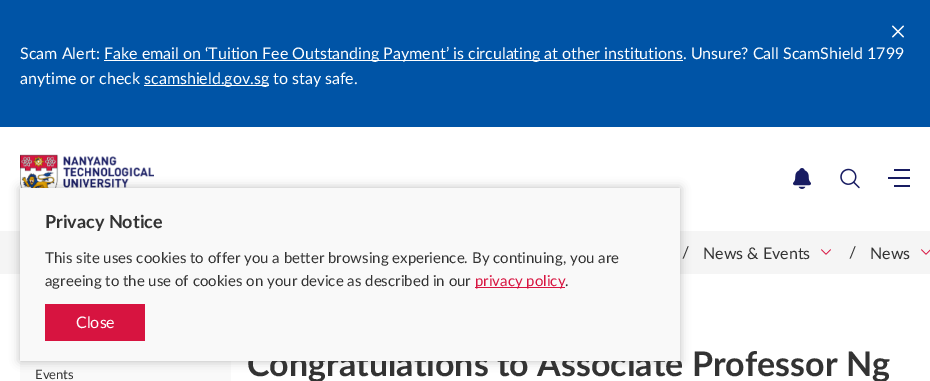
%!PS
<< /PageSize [930 381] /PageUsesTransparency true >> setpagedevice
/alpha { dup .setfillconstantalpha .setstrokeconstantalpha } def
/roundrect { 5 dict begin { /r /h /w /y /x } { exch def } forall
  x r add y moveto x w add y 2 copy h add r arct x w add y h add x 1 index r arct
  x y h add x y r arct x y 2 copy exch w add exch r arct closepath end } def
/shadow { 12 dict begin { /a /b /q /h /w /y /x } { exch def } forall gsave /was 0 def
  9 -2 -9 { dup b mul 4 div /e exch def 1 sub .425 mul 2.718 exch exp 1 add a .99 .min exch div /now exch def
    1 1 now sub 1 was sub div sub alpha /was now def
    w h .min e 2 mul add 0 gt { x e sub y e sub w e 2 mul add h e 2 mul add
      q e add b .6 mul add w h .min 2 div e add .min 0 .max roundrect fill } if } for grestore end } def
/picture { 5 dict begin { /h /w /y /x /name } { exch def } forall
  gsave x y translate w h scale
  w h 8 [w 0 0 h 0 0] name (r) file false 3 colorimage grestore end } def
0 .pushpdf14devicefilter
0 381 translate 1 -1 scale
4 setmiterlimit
1 setgray
0 0 930 381 rectfill
0 0.329 0.651 setrgbcolor
0 0 930 127 rectfill
(img1.rgb) 892 25 12 13 picture
/Lato-Regular [16 0 0 -16 0 0] selectfont
1 setgray
20 59 moveto (Scam Alert:) show
104 60 579 1 rectfill
104 59 moveto (Fake email on ‘Tuition Fee Outstanding Payment’ is circulating at other institutions. Unsure? Call ScamShield 1799) show
20 84 moveto (anytime or check) show
144 85 125 1 rectfill
144 84 moveto (scamshield.gov.sg to stay safe.) show
(img2.rgb) 20 154 134 34 picture
(img3.rgb) 793 168 18 21 picture
(img4.rgb) 840 168 20 21 picture
0.094 0.11 0.384 setrgbcolor
894 169 16 2 rectfill
888 177 22 2 rectfill
894 185 16 2 rectfill
0.961 setgray
0 231 930 43 rectfill
0.976 setgray
20 361 211 20 rectfill
0 setgray
20 188 660 173 0 5 0.25 shadow
/Lato-Bold [34 0 0 -34 0 0] selectfont
0.2 setgray
247 376 moveto (Congratulations to Associate Professor Ng) show
0.976 setgray
20 188 660 173 rectfill
/Lato-Bold [18 0 0 -18 0 0] selectfont
0.2 setgray
45 228 moveto (Privacy Notice) show
/Lato-Regular [15 0 0 -15 0 0] selectfont
45 263 moveto (This site uses cookies to offer you a better browsing experience. By continuing, you are) show
45 286 moveto (agreeing to the use of cookies on your device as described in our) show
0.843 0.078 0.251 setrgbcolor
475 287 90 1 rectfill
475 286 moveto (privacy policy) show
0.2 setgray
565 286 moveto (.) show
0.843 0.078 0.251 setrgbcolor
45 304 100 37 rectfill
/Lato-Regular [16 0 0 -16 0 0] selectfont
1 setgray
76 328 moveto (Close) show
0.2 setgray
682 258 moveto (/) show
703 259 moveto (News & Events) show
(img5.rgb) 821 249 10 6 picture
849 258 moveto (/) show
870 259 moveto (News) show
(img6.rgb) 921 249 9 6 picture
/Lato-Regular [13 0 0 -13 0 0] selectfont
35 379 moveto (Events) show
.poppdf14devicefilter showpage
